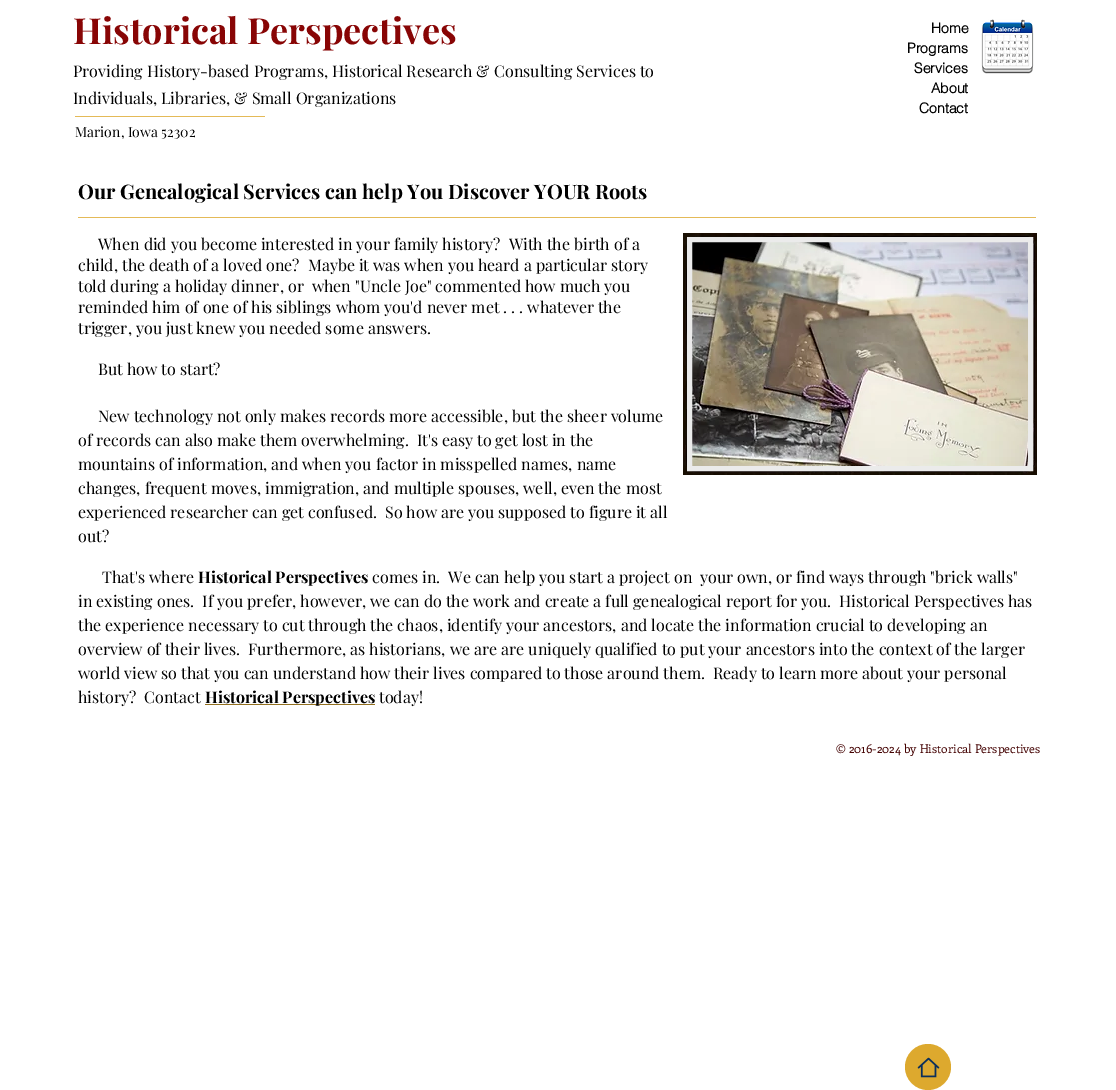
%!PS
<< /PageSize [1116 1090] >> setpagedevice
/picture { 5 dict begin { /h /w /y /x /name } { exch def } forall
  gsave x y translate w h scale
  w h 8 [w 0 0 h 0 0] name (r) file false 3 colorimage grestore end } def
0 1090 translate 1 -1 scale
4 setmiterlimit
1 setgray
0 0 1116 1090 rectfill
/PlayfairDisplay-Bold [36 0 0 -36 0 0] selectfont
0.533 0.02 0.02 setrgbcolor
73 44 moveto (Historical Perspectives) show
/PlayfairDisplay-Regular [16 0 0 -16 0 0] selectfont
0 setgray
73 77 moveto (Providing History-based Programs, Historical Research & Consulting Services to) show
73 104 moveto (Individuals, Libraries, & Small Organizations) show
/helvetica-Bold [14 0 0 -14 0 0] selectfont
931 33 moveto (Home) show
907 53 moveto (Programs) show
914 73 moveto (Services) show
931 93 moveto (About) show
919 113 moveto (Contact) show
(img1.rgb) 981 19 53 55 picture
0.894 0.729 0.345 setrgbcolor
75 116 190 1 rectfill
/PlayfairDisplay-Regular [14 0 0 -14 0 0] selectfont
0 setgray
75 137 moveto (Marion, Iowa 52302) show
/PlayfairDisplay-Bold [20 0 0 -20 0 0] selectfont
78 199 moveto (Our Genealogical Services can help You Discover YOUR Roots) show
0.894 0.729 0.345 setrgbcolor
78 217 958 1 rectfill
/PlayfairDisplay-Regular [16 0 0 -16 0 0] selectfont
0 setgray
98 250 moveto (When did you become interested in your family history?  With the birth of a) show
78 271 moveto (child, the death of a loved one?  Maybe it was when you heard a particular story) show
78 292 moveto (told during a holiday dinner, or  when "Uncle Joe" commented how much you) show
78 313 moveto (reminded him of one of his siblings whom you'd never met . . . whatever the) show
78 334 moveto (trigger, you just knew you needed some answers.) show
98 375 moveto (But how to start?) show
98 422 moveto (New technology not only makes records more accessible, but the sheer volume) show
78 446 moveto (of records can also make them overwhelming.  It's easy to get lost in the) show
78 470 moveto (mountains of information, and when you factor in misspelled names, name) show
78 494 moveto (changes, frequent moves, immigration, and multiple spouses, well, even the most) show
78 518 moveto (experienced researcher can get confused.  So how are you supposed to figure it all) show
78 542 moveto (out?) show
(img2.rgb) 683 233 354 242 picture
0.922 setgray
5 setlinewidth
689.5 239.5 341 229 rectstroke
0 setgray
102 583 moveto (That's where) show
/PlayfairDisplay-Bold [16 0 0 -16 0 0] selectfont
198 583 moveto (Historical Perspectives) show
/PlayfairDisplay-Regular [16 0 0 -16 0 0] selectfont
372 583 moveto (comes in.  We can help you start a project on  your own, or find ways through "brick walls") show
78 607 moveto (in existing ones.  If you prefer, however, we can do the work and create a full genealogical report for you.  Historical Perspectives has) show
78 631 moveto (the experience necessary to cut through the chaos, identify your ancestors, and locate the information crucial to developing an) show
78 655 moveto (overview of their lives.  Furthermore, as historians, we are are uniquely qualified to put your ancestors into the context of the larger) show
78 679 moveto (world view so that you can understand how their lives compared to those around them.  Ready to learn more about your personal) show
78 703 moveto (history?  Contact) show
0.576 0.439 0.122 setrgbcolor
205 704 170 1 rectfill
/PlayfairDisplay-Bold [16 0 0 -16 0 0] selectfont
0 setgray
205 703 moveto (Historical Perspectives) show
/PlayfairDisplay-Regular [16 0 0 -16 0 0] selectfont
379 703 moveto (today!) show
/Enriqueta-Regular [12 0 0 -12 0 0] selectfont
0.267 0.008 0.008 setrgbcolor
836 753 moveto (© 2016-2024 by Historical Perspectives) show
0.867 0.663 0.18 setrgbcolor
newpath 928 1067 23 0 360 arc closepath fill
(img3.rgb) 917 1057 23 21 picture
showpage
